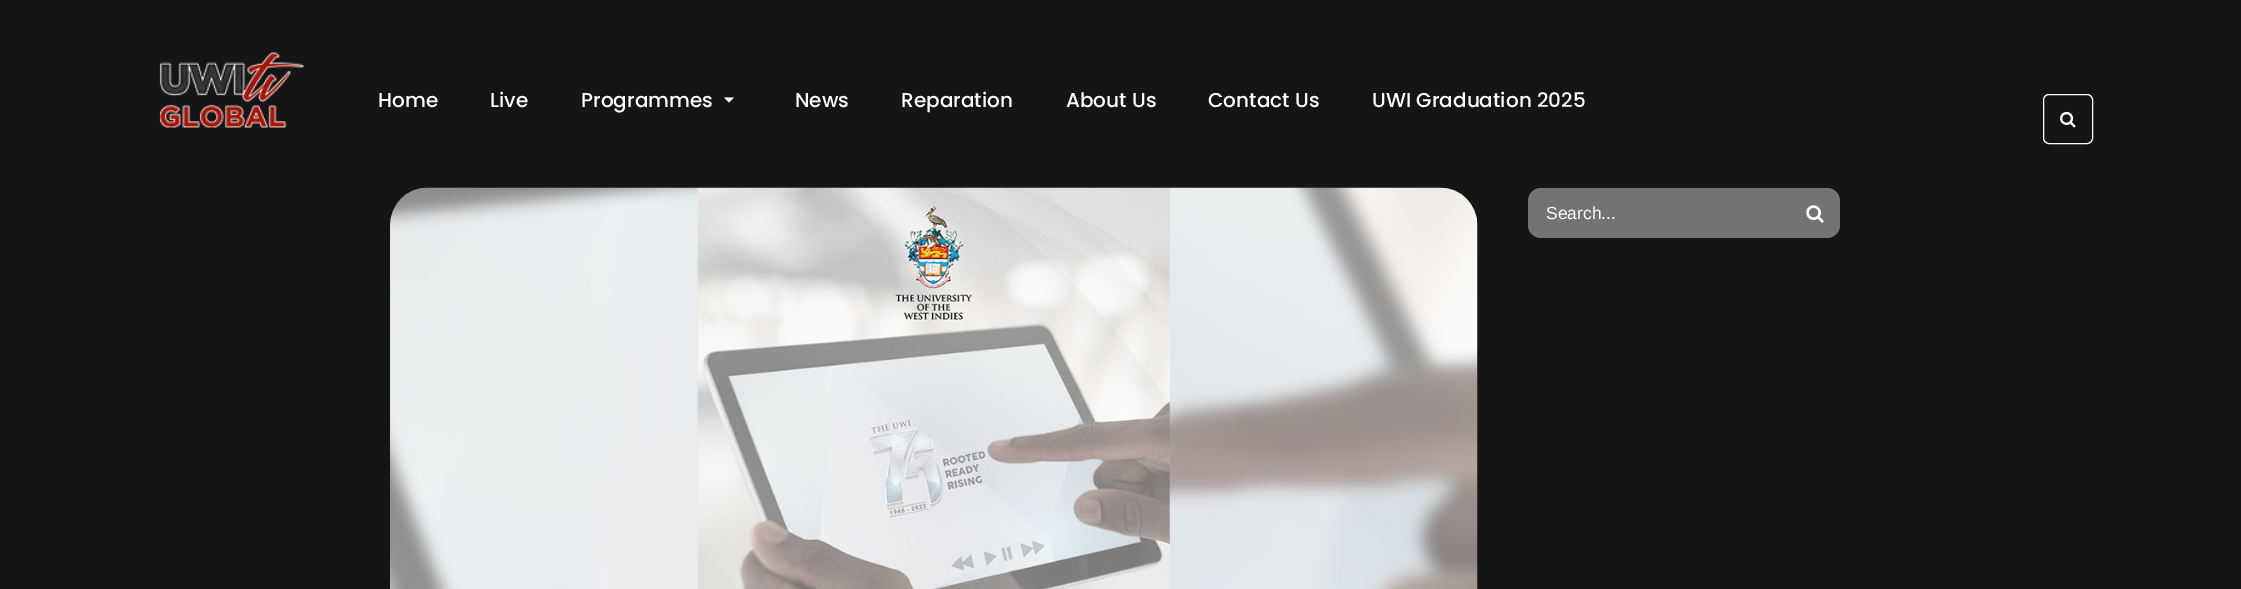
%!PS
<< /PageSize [2241 589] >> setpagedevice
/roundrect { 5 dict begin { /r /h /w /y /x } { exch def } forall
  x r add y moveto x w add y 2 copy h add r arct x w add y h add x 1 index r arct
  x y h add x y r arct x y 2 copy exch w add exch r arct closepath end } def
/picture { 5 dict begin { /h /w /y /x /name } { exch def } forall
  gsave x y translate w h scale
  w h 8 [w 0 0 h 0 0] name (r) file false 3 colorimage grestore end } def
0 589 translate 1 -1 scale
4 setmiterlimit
0.082 setgray
0 0 2241 589 rectfill
(img1.rgb) 159 52 145 76 picture
/Poppins-Medium [20 0 0 -20 0 0] selectfont
1 0.996 0.988 setrgbcolor
378 107 moveto (Home) show
490 107 moveto (Live) show
581 107 moveto (Programmes) show
1 setgray
newpath 724 97.5 moveto 734 97.5 lineto 729 102.5 lineto closepath fill
1 0.996 0.988 setrgbcolor
795 107 moveto (News) show
901 107 moveto (Reparation) show
1066 107 moveto (About Us) show
1208 107 moveto (Contact Us) show
1372 107 moveto (UWI Graduation 2025) show
1 setgray
2043.5 94.5 49 49 5.5 roundrect stroke
(img2.rgb) 2060 111 16 17 picture
(img3.rgb) 390 187 1088 402 picture
0.451 setgray
1528 188 312 50 13 roundrect fill
/LiberationSans-Regular [17.5 0 0 -17.5 0 0] selectfont
1 0.996 0.988 setrgbcolor
1546 219 moveto (Search...) show
(img4.rgb) 1806 205 18 18 picture
showpage
